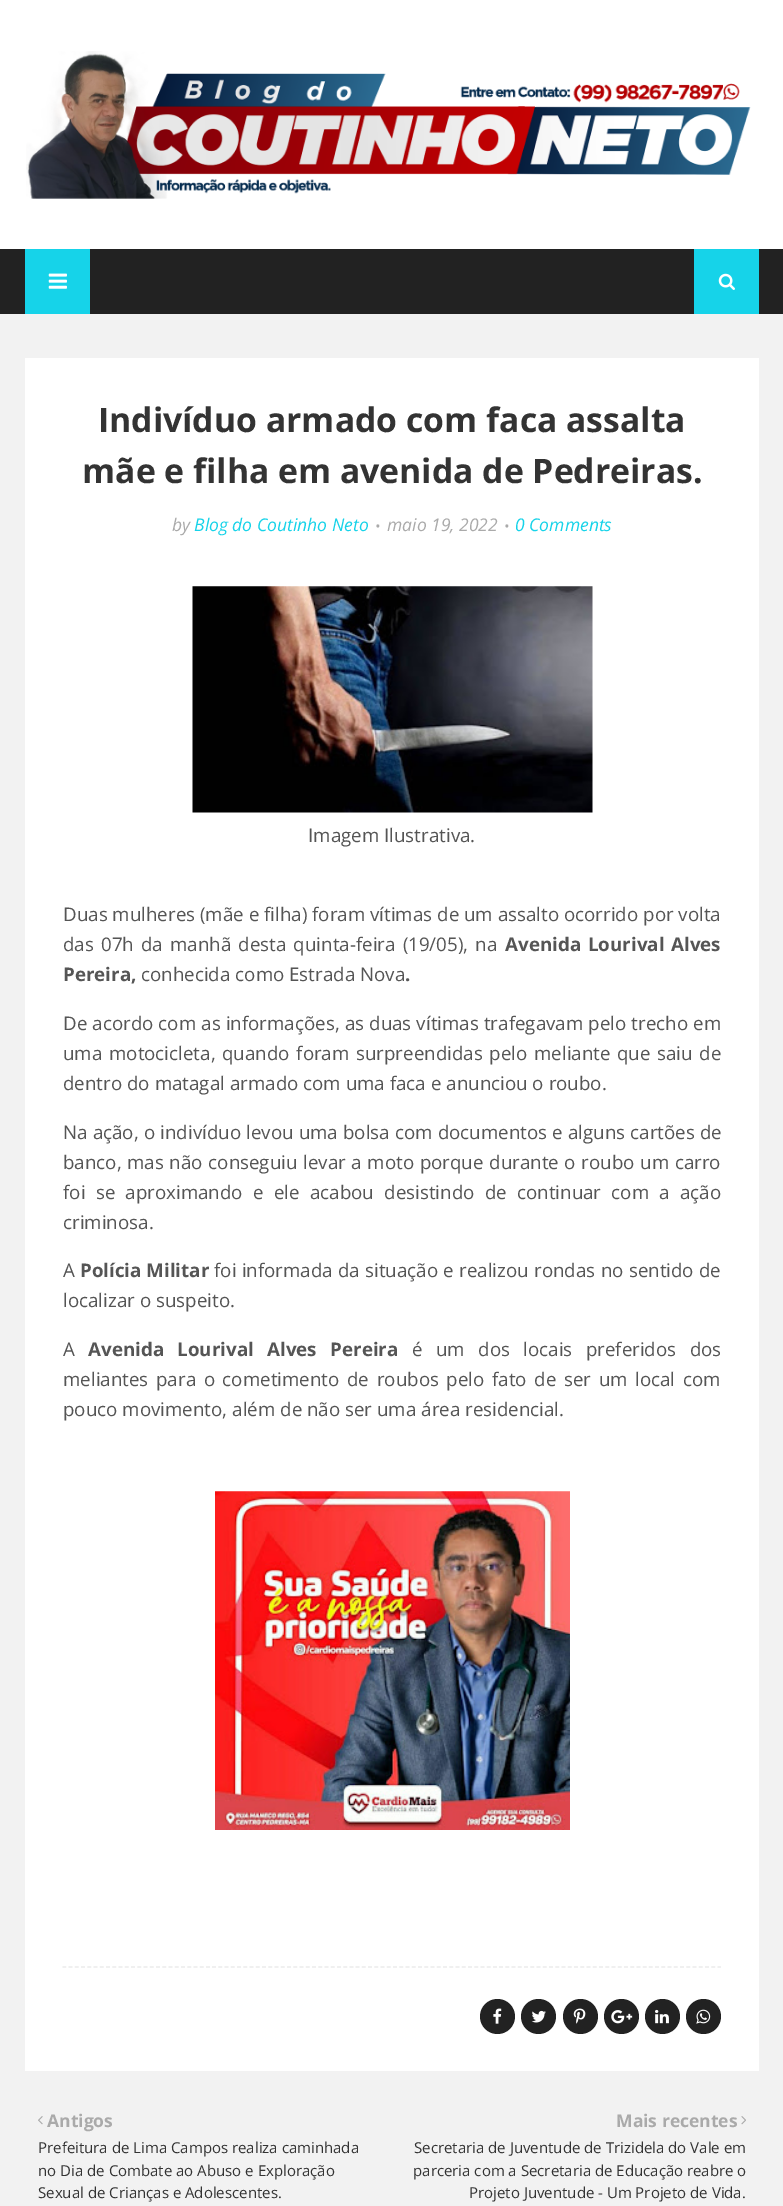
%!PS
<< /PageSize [783 2206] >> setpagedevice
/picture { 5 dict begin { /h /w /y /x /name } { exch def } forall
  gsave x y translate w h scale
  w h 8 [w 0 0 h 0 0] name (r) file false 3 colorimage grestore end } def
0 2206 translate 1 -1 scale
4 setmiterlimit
0.949 setgray
0 0 783 2206 rectfill
1 setgray
0 0 783 249 rectfill
(img1.rgb) 26 51 725 148 picture
0.133 setgray
0 249 783 65 rectfill
0.086 0.827 0.914 setrgbcolor
25 249 65 65 rectfill
(img2.rgb) 48 273 19 16 picture
694 249 65 65 rectfill
(img3.rgb) 718 273 17 17 picture
1 setgray
25 358 734 1713 rectfill
/OpenSans-Bold [33.75 0 0 -33.75 0 0] selectfont
0.2 setgray
98 432 moveto (Indivíduo armado com faca assalta) show
82 483 moveto (mãe e filha em avenida de Pedreiras.) show
/OpenSans-Italic [17.5 0 0 -17.5 0 0] selectfont
0.667 setgray
172 531 moveto (by) show
0.086 0.827 0.914 setrgbcolor
194 531 moveto (Blog do Coutinho Neto) show
/OpenSans-Italic [14 0 0 -14 0 0] selectfont
0.667 setgray
375 531 moveto (•) show
/OpenSans-Italic [17.5 0 0 -17.5 0 0] selectfont
387 531 moveto (maio 19, 2022) show
/OpenSans-Italic [14 0 0 -14 0 0] selectfont
504 531 moveto (•) show
/OpenSans-Italic [17.5 0 0 -17.5 0 0] selectfont
0.086 0.827 0.914 setrgbcolor
515 531 moveto (0 Comments) show
(img4.rgb) 192 586 401 227 picture
/OpenSans-Regular [18.75 0 0 -18.75 0 0] selectfont
0.333 setgray
308 842 moveto (Imagem Ilustrativa.) show
63 921 moveto (Duas mulheres \(mãe e filha\) foram vítimas de um assalto ocorrido por volta) show
63 951 moveto 2.25 0 32 (das 07h da manhã desta quinta-feira \(19/05\), na) widthshow
/OpenSans-Bold [18.75 0 0 -18.75 0 0] selectfont
505 951 moveto 2 0 32 (Avenida Lourival Alves) widthshow
63 981 moveto (Pereira,) show
/OpenSans-Regular [18.75 0 0 -18.75 0 0] selectfont
141 981 moveto (conhecida como Estrada Nova) show
/OpenSans-Bold [18.75 0 0 -18.75 0 0] selectfont
405 981 moveto (.) show
/OpenSans-Regular [18.75 0 0 -18.75 0 0] selectfont
63 1030 moveto 0.25 0 32 (De acordo com as informações, as duas vítimas trafegavam pelo trecho em) widthshow
63 1060 moveto 1.75 0 32 (uma motocicleta, quando foram surpreendidas pelo meliante que saiu de) widthshow
63 1090 moveto (dentro do matagal armado com uma faca e anunciou o roubo.) show
63 1139 moveto 0.25 0 32 (Na ação, o indivíduo levou uma bolsa com documentos e alguns cartões de) widthshow
63 1169 moveto 0.75 0 32 (banco, mas não conseguiu levar a moto porque durante o roubo um carro) widthshow
63 1199 moveto 5.4 0 32 (foi se aproximando e ele acabou desistindo de continuar com a ação) widthshow
63 1229 moveto (criminosa.) show
63 1277 moveto (A) show
/OpenSans-Bold [18.75 0 0 -18.75 0 0] selectfont
80 1277 moveto (Polícia Militar) show
/OpenSans-Regular [18.75 0 0 -18.75 0 0] selectfont
214 1277 moveto 0.4 0 32 (foi informada da situação e realizou rondas no sentido de) widthshow
63 1307 moveto (localizar o suspeito.) show
63 1356 moveto (A) show
/OpenSans-Bold [18.75 0 0 -18.75 0 0] selectfont
88 1356 moveto 8.5 0 32 (Avenida Lourival Alves Pereira) widthshow
/OpenSans-Regular [18.75 0 0 -18.75 0 0] selectfont
412 1356 moveto 8.5 0 32 (é um dos locais preferidos dos) widthshow
63 1386 moveto 2.75 0 32 (meliantes para o cometimento de roubos pelo fato de ser um local com) widthshow
63 1416 moveto (pouco movimento, além de não ser uma área residencial.) show
(img5.rgb) 215 1491 355 339 picture
0.922 setgray
1.2 setlinewidth
[3.75 2.49] 0 setdash
newpath 62.5 1967 moveto 721 1967 lineto stroke
0.133 setgray
newpath 497.5 2016.5 17.5 0 360 arc closepath fill
(img6.rgb) 493 2008 9 16 picture
newpath 538.5 2016.5 17.5 0 360 arc closepath fill
(img7.rgb) 531 2010 15 13 picture
newpath 580.5 2016.5 17.5 0 360 arc closepath fill
(img8.rgb) 573 2008 13 16 picture
newpath 621.5 2016.5 17.5 0 360 arc closepath fill
(img9.rgb) 611 2010 22 14 picture
newpath 662.5 2016.5 17.5 0 360 arc closepath fill
(img10.rgb) 655 2009 14 15 picture
newpath 703.5 2016.5 17.5 0 360 arc closepath fill
(img11.rgb) 696 2009 15 15 picture
(img12.rgb) 38 2116 5 9 picture
/OpenSans-Bold [17.5 0 0 -17.5 0 0] selectfont
0.667 setgray
47 2127 moveto (Antigos) show
/OpenSans-Regular [15 0 0 -15 0 0] selectfont
0.2 setgray
38 2153 moveto (Prefeitura de Lima Campos realiza caminhada) show
38 2176 moveto (no Dia de Combate ao Abuso e Exploração) show
38 2198 moveto (Sexual de Crianças e Adolescentes.) show
/OpenSans-Bold [17.5 0 0 -17.5 0 0] selectfont
0.667 setgray
616 2127 moveto (Mais recentes) show
(img13.rgb) 741 2116 5 9 picture
/OpenSans-Regular [15 0 0 -15 0 0] selectfont
0.2 setgray
414 2153 moveto (Secretaria de Juventude de Trizidela do Vale em) show
413 2176 moveto (parceria com a Secretaria de Educação reabre o) show
469 2198 moveto (Projeto Juventude - Um Projeto de Vida.) show
showpage
